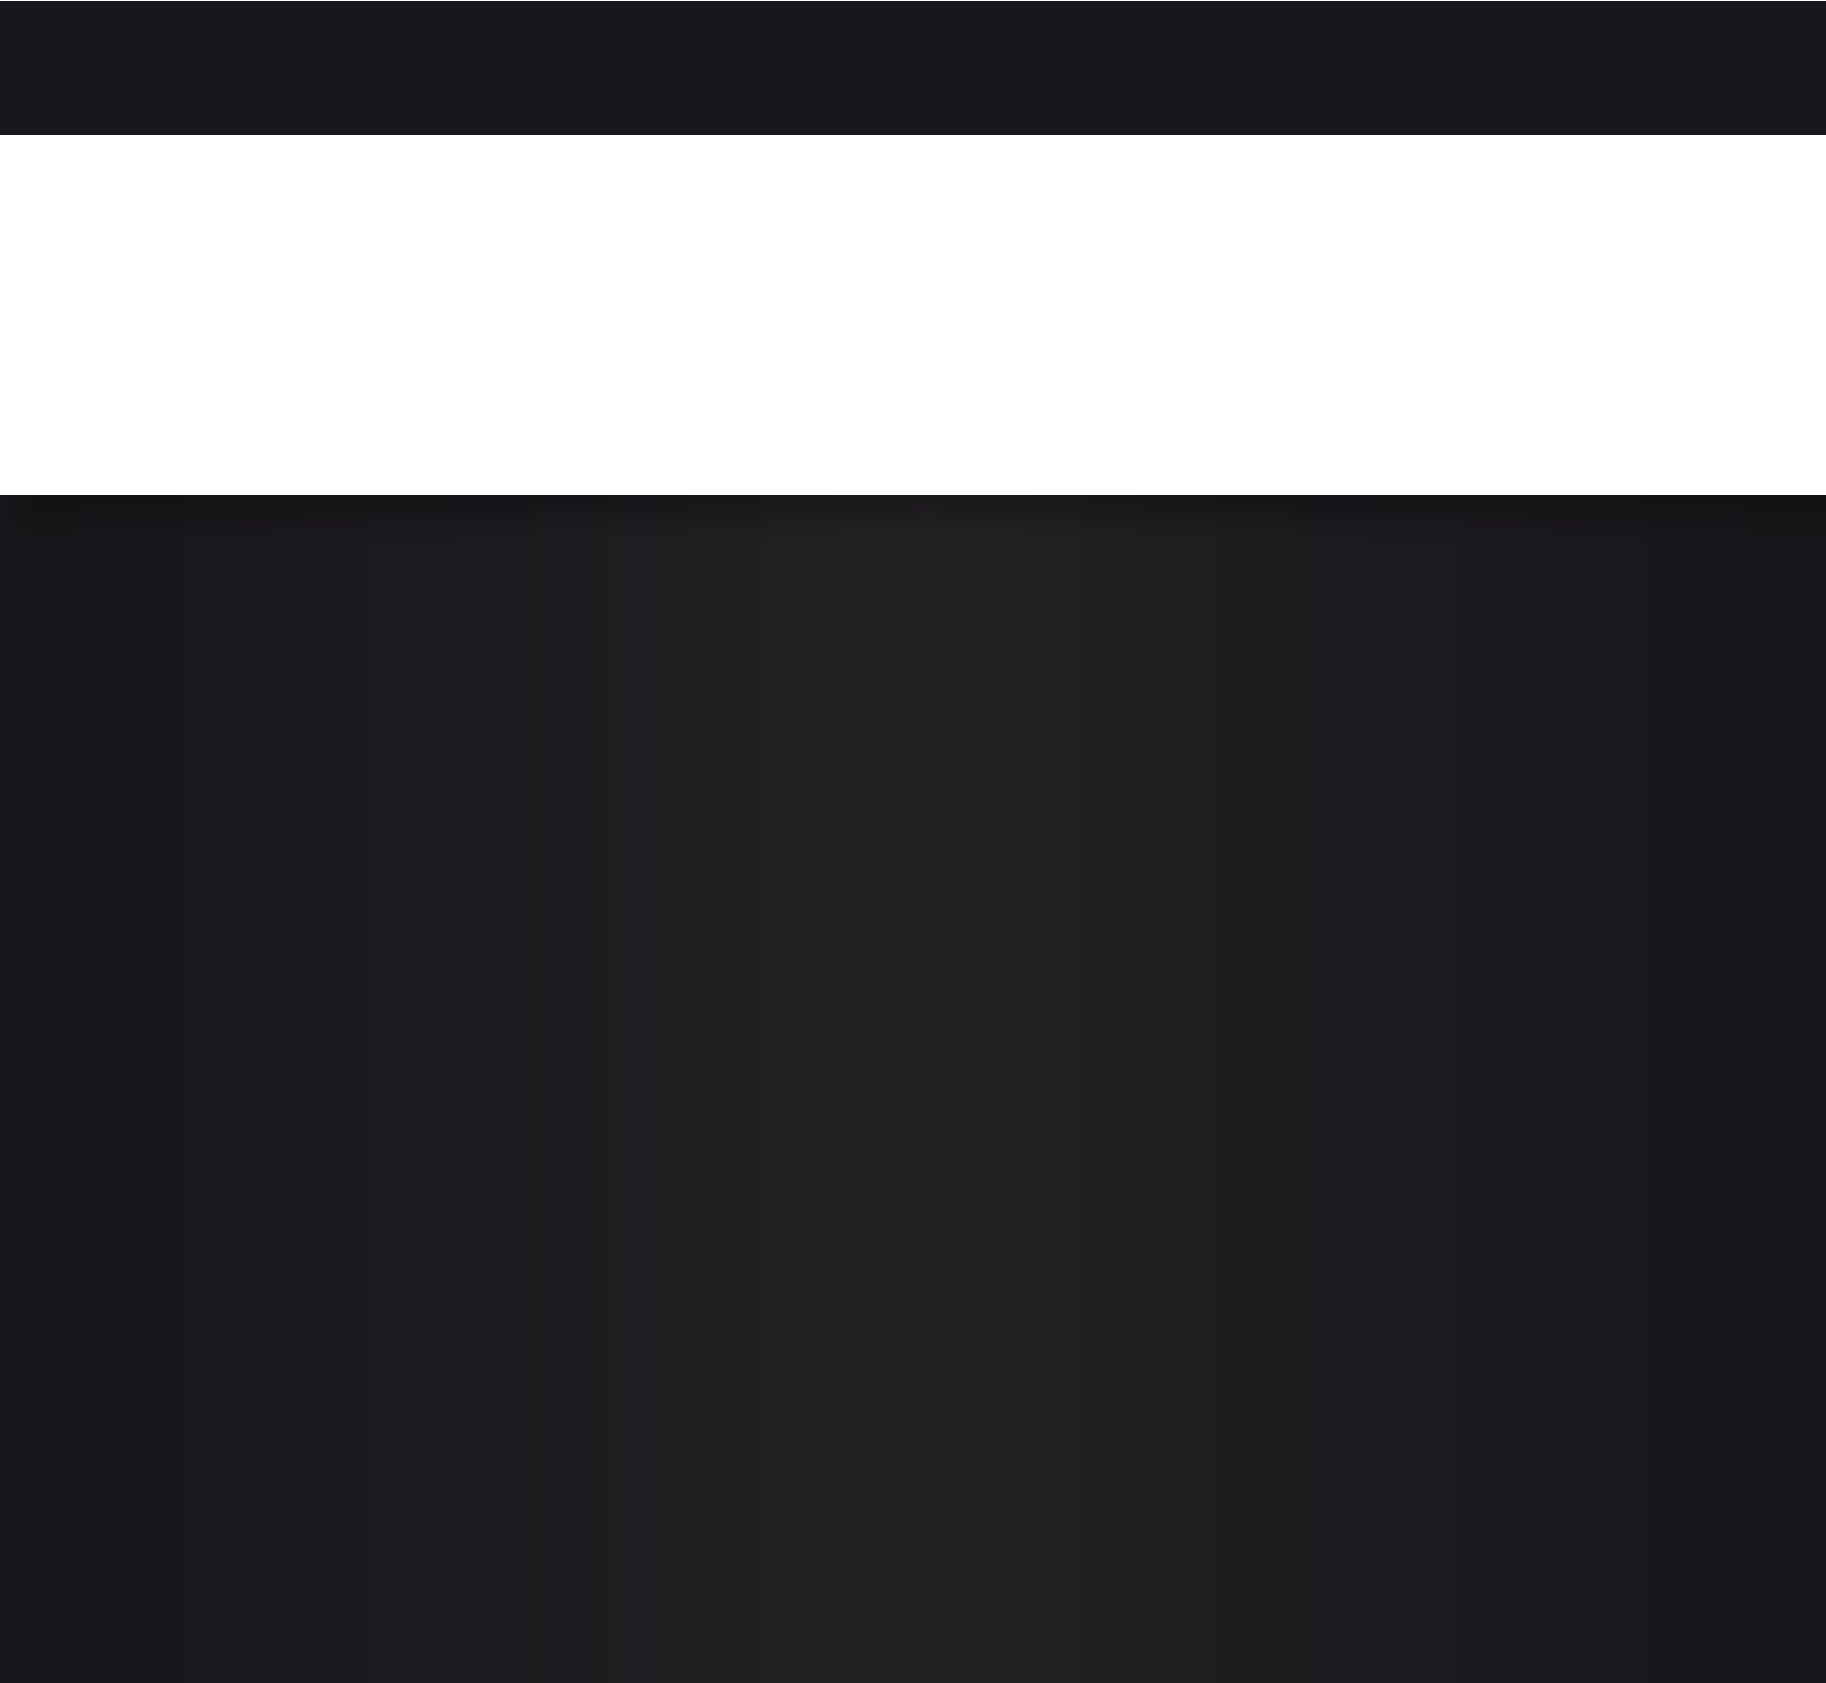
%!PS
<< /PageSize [1826 1683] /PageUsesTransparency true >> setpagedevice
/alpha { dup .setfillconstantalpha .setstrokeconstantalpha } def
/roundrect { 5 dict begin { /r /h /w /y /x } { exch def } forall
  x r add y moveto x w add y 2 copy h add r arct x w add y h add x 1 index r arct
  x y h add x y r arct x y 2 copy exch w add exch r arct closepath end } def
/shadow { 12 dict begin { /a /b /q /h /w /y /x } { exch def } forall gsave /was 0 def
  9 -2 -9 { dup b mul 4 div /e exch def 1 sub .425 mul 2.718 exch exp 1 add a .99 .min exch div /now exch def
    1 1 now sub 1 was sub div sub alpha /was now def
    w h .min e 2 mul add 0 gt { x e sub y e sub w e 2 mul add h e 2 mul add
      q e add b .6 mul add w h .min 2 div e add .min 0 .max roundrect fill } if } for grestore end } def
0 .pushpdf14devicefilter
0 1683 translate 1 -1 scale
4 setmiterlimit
1 setgray
0 0 1826 1683 rectfill
gsave newpath 0 779 moveto 1826 779 lineto 1826 1683 lineto 0 1683 lineto closepath clip newpath
<< /ShadingType 2 /ColorSpace /DeviceRGB /Coords [0 389 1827 389] /Extend [true true] /Function << /FunctionType 3 /Domain [0 1] /Functions [<< /FunctionType 2 /Domain [0 1] /C0 [0.09 0.086 0.102] /C1 [0.141 0.129 0.141] /N 1 >> << /FunctionType 2 /Domain [0 1] /C0 [0.141 0.129 0.141] /C1 [0.09 0.086 0.102] /N 1 >>] /Bounds [0.5] /Encode [0 1 0 1] >> >> shfill grestore
0.09 0.086 0.102 setrgbcolor
0 1 1826 134 rectfill
gsave newpath 0 495 moveto 1826 495 lineto 1826 779 lineto 0 779 lineto closepath clip newpath
<< /ShadingType 2 /ColorSpace /DeviceRGB /Coords [0 457 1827 457] /Extend [true true] /Function << /FunctionType 3 /Domain [0 1] /Functions [<< /FunctionType 2 /Domain [0 1] /C0 [0.09 0.086 0.102] /C1 [0.141 0.129 0.141] /N 1 >> << /FunctionType 2 /Domain [0 1] /C0 [0.141 0.129 0.141] /C1 [0.09 0.086 0.102] /N 1 >>] /Bounds [0.5] /Encode [0 1 0 1] >> >> shfill grestore
0.004 setgray
23 158 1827 360 0 16 0.3 shadow
1 setgray
0 135 1826 360 rectfill
.poppdf14devicefilter showpage
